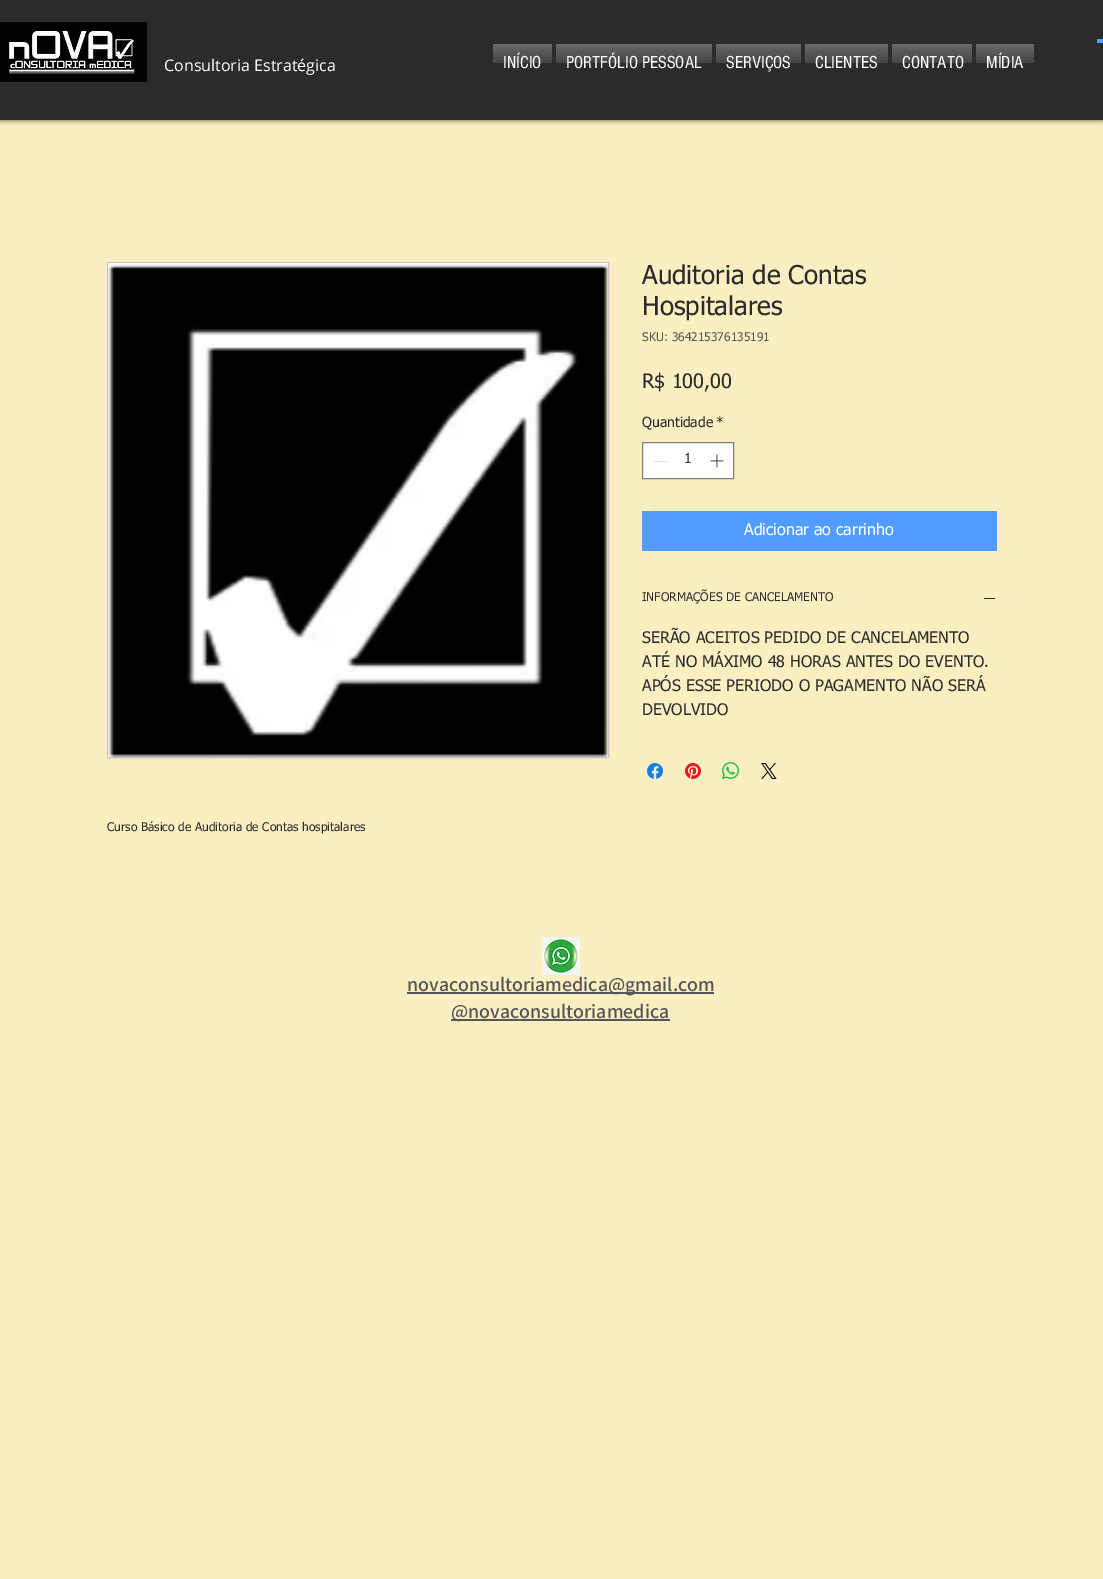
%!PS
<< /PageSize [1103 1579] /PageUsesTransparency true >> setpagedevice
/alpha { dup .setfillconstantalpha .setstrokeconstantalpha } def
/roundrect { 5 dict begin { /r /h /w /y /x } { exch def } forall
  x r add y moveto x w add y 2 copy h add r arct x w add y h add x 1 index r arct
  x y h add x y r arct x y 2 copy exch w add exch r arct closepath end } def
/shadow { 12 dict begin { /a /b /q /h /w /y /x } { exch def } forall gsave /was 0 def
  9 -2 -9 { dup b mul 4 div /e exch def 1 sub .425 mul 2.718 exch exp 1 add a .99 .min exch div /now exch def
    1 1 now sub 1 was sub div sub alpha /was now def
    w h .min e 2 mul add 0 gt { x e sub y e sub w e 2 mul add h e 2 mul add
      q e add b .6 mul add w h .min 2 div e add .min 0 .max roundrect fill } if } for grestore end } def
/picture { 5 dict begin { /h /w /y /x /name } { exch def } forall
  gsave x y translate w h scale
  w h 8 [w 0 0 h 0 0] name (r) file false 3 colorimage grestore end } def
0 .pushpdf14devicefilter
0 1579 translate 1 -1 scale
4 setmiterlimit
0.984 0.937 0.761 setrgbcolor
0 0 1103 1579 rectfill
0 setgray
0 0 1103 120 0 2.5 0.7 shadow
0.165 0.169 0.173 setrgbcolor
0 0 1103 120 rectfill
(img1.rgb) 0 22 147 60 picture
0.318 0.612 1 setrgbcolor
1097 39 6 4 rectfill
/OpenSans-Regular [16 0 0 -16 0 0] selectfont
1 setgray
164 71 moveto (Consultoria Estratégica) show
(img2.rgb) 493 44 59 19 picture
/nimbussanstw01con-Regular [18 0 0 -18 0 0] selectfont
503 68 moveto (INÍCIO) show
(img3.rgb) 556 44 156 19 picture
566 68 moveto (PORTFÓLIO PESSOAL) show
(img4.rgb) 716 44 85 19 picture
726 68 moveto (SERVIÇOS) show
(img5.rgb) 805 44 83 19 picture
815 68 moveto (CLIENTES) show
(img6.rgb) 892 44 80 19 picture
902 68 moveto (CONTATO) show
(img7.rgb) 976 44 58 19 picture
986 68 moveto (MÍDIA) show
/tahoma-Regular [26 0 0 -26 0 0] selectfont
0.165 0.169 0.173 setrgbcolor
642 284 moveto (Auditoria de Contas) show
642 315 moveto (Hospitalares) show
/tahoma-Regular [12 0 0 -12 0 0] selectfont
0.329 0.337 0.345 setrgbcolor
642 341 moveto (SKU: 364215376135191) show
/tahoma-Regular [20 0 0 -20 0 0] selectfont
0.165 0.169 0.173 setrgbcolor
642 388 moveto (R$ 100,00) show
/tahoma-Regular [14 0 0 -14 0 0] selectfont
642 427 moveto (Quantidade) show
716 427 moveto (*) show
1 setgray
newpath 642.5 442.5 moveto 733.5 442.5 lineto 733.5 478.5 lineto 642.5 478.5 lineto closepath gsave fill grestore
0.498 0.502 0.502 setrgbcolor
stroke
0.89 setgray
654 461 13 1 rectfill
0.165 0.169 0.173 setrgbcolor
684 463 moveto (1) show
(img8.rgb) 710 454 14 14 picture
0.318 0.612 1 setrgbcolor
642 511 355 40 rectfill
/tahoma-Regular [16 0 0 -16 0 0] selectfont
1 setgray
744 535 moveto (Adicionar ao carrinho) show
/tahoma-Regular [12 0 0 -12 0 0] selectfont
0.165 0.169 0.173 setrgbcolor
642 601 moveto (INFORMAÇÕES DE CANCELAMENTO) show
984 598 11 1 rectfill
/tahoma-Regular [16 0 0 -16 0 0] selectfont
642 643 moveto (SERÃO ACEITOS PEDIDO DE CANCELAMENTO) show
642 667 moveto (ATÉ NO MÁXIMO 48 HORAS ANTES DO EVENTO.) show
642 691 moveto (APÓS ESSE PERIODO O PAGAMENTO NÃO SERÁ) show
642 715 moveto (DEVOLVIDO) show
(img9.rgb) 647 763 16 16 picture
(img10.rgb) 685 763 16 16 picture
(img11.rgb) 722 762 17 17 picture
(img12.rgb) 761 763 16 16 picture
0.773 0.765 0.765 setrgbcolor
107.5 262.5 501 495 rectstroke
(img13.rgb) 108 263 500 494 picture
/tahoma-Regular [12 0 0 -12 0 0] selectfont
0.165 0.169 0.173 setrgbcolor
107 831 moveto (Curso Básico de Auditoria de Contas hospitalares) show
(img14.rgb) 542 937 38 38 picture
0.329 0.337 0.345 setrgbcolor
407 992 307 2 rectfill
/Assistant-SemiBold [20 0 0 -20 0 0] selectfont
407 991 moveto (novaconsultoriamedica@gmail.com) show
451 1019 219 2 rectfill
451 1018 moveto (@novaconsultoriamedica) show
.poppdf14devicefilter showpage
